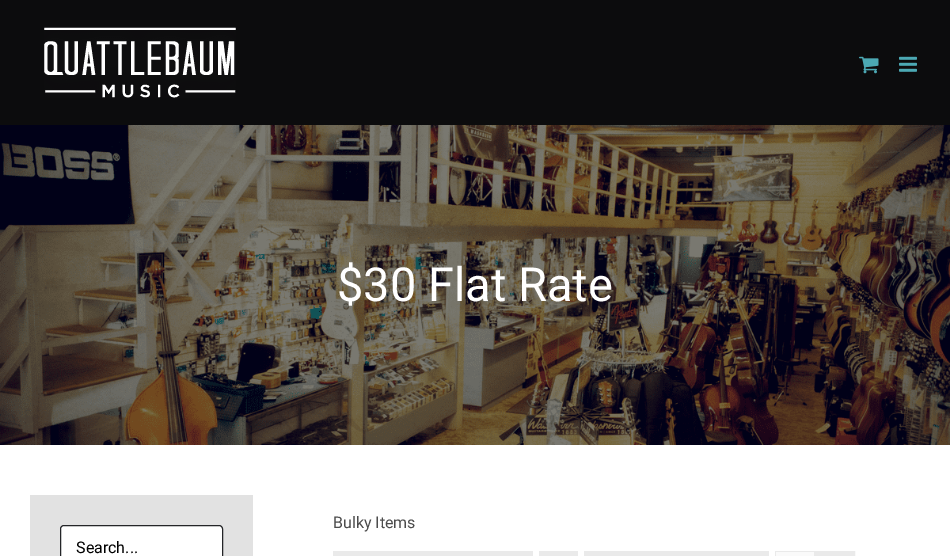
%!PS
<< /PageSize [950 556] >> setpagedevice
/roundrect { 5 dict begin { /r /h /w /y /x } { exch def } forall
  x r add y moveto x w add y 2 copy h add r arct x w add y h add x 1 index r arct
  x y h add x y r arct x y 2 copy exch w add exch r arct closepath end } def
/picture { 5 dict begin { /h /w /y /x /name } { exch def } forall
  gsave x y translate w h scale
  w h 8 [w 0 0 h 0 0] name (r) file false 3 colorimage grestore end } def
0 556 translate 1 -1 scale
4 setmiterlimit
1 setgray
0 0 950 556 rectfill
0.047 0.047 0.051 setrgbcolor
0 0 950 125 rectfill
(img1.rgb) 44 27 192 71 picture
(img2.rgb) 859 56 20 18 picture
(img3.rgb) 899 56 18 16 picture
(img4.rgb) 0 125 950 320 picture
/Roboto-Regular [47 0 0 -47 0 0] selectfont
1 setgray
337 301 moveto ($30 Flat Rate) show
/Roboto-Regular [16 0 0 -16 0 0] selectfont
0.298 setgray
333 528 moveto (Bulky Items) show
0.918 setgray
333 551 200 5 rectfill
539 551 39 5 rectfill
584 551 185 5 rectfill
775.5 551.5 79 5 rectstroke
0.98 setgray
776 552 39 4 rectfill
0.918 setgray
814 552 40 4 rectfill
0.886 setgray
30 495 223 61 rectfill
1 setgray
60.5 525.5 162 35 3.5 roundrect gsave fill grestore
0.141 0.145 0.157 setrgbcolor
stroke
0 setgray
76 553 moveto (Search...) show
showpage
